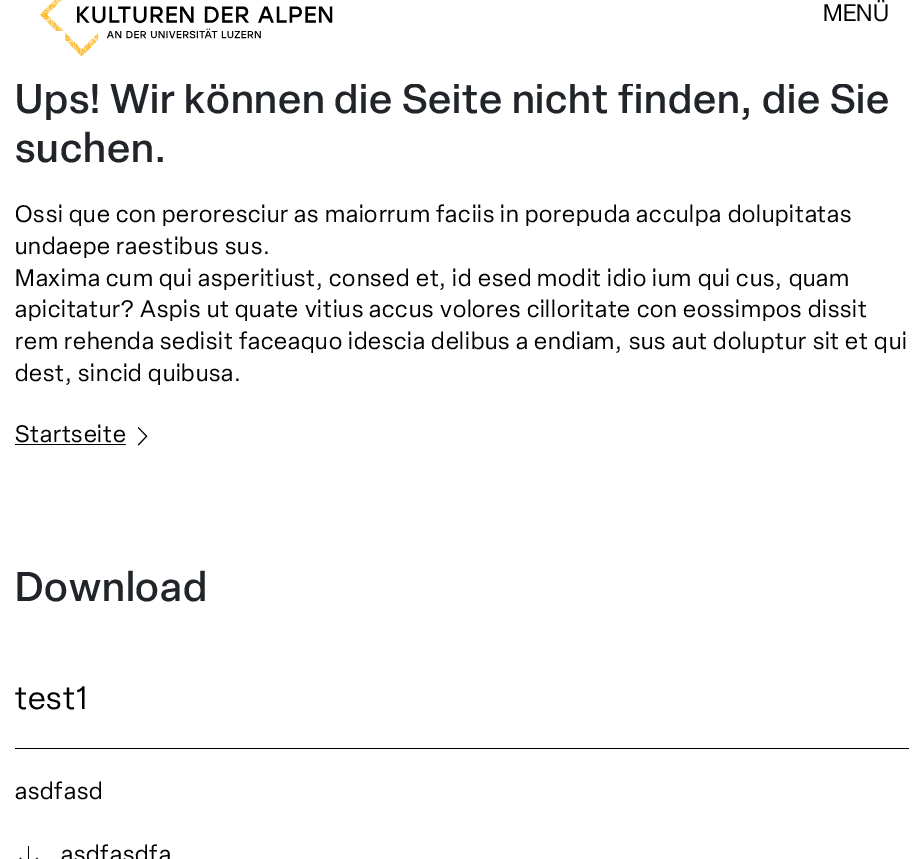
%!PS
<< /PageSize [923 859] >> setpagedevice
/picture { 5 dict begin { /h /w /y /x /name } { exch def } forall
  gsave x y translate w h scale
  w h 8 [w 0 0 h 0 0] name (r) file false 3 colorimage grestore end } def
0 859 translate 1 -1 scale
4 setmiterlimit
1 setgray
0 0 923 859 rectfill
/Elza-Medium [40.9 0 0 -40.9 0 0] selectfont
0.129 0.145 0.161 setrgbcolor
15 113 moveto 0.88 0 (Ups! Wir können die Seite nicht finden, die Sie) ashow
1 setgray
152 82 711 2 rectfill
(img1.rgb) 40 0 293 57 picture
/Elza-Regular [23.5 0 0 -23.5 0 0] selectfont
0 setgray
823 21 moveto (MENÜ) show
/Elza-Medium [40.9 0 0 -40.9 0 0] selectfont
0.129 0.145 0.161 setrgbcolor
15 162 moveto 0.88 0 (suchen.) ashow
/Elza-Regular [23.5 0 0 -23.5 0 0] selectfont
0 setgray
15 222 moveto 0.88 0 (Ossi que con peroresciur as maiorrum faciis in porepuda acculpa dolupitatas) ashow
15 254 moveto 0.88 0 (undaepe raestibus sus.) ashow
15 286 moveto 0.88 0 (Maxima cum qui asperitiust, consed et, id esed modit idio ium qui cus, quam) ashow
15 317 moveto 0.88 0 (apicitatur? Aspis ut quate vitius accus volores cilloritate con eossimpos dissit) ashow
15 349 moveto 0.88 0 (rem rehenda sedisit faceaquo idescia delibus a endiam, sus aut doluptur sit et qui) ashow
15 381 moveto 0.88 0 (dest, sincid quibusa.) ashow
15 442 moveto 0.88 0 (Startseite) ashow
(img2.rgb) 138 427 10 19 picture
15 444 111 1 rectfill
/Elza-Medium [40.9 0 0 -40.9 0 0] selectfont
0.129 0.145 0.161 setrgbcolor
15 601 moveto 0.88 0 (Download) ashow
/Elza-Regular [32 0 0 -32 0 0] selectfont
0 setgray
15 709 moveto 0.88 0 (test1) ashow
15 748 894 1 rectfill
/Elza-Regular [23.5 0 0 -23.5 0 0] selectfont
15 799 moveto 0.88 0 (asdfasd) ashow
(img3.rgb) 19 846 19 13 picture
61 862 moveto 0.88 0 (asdfasdfa) ashow
showpage
